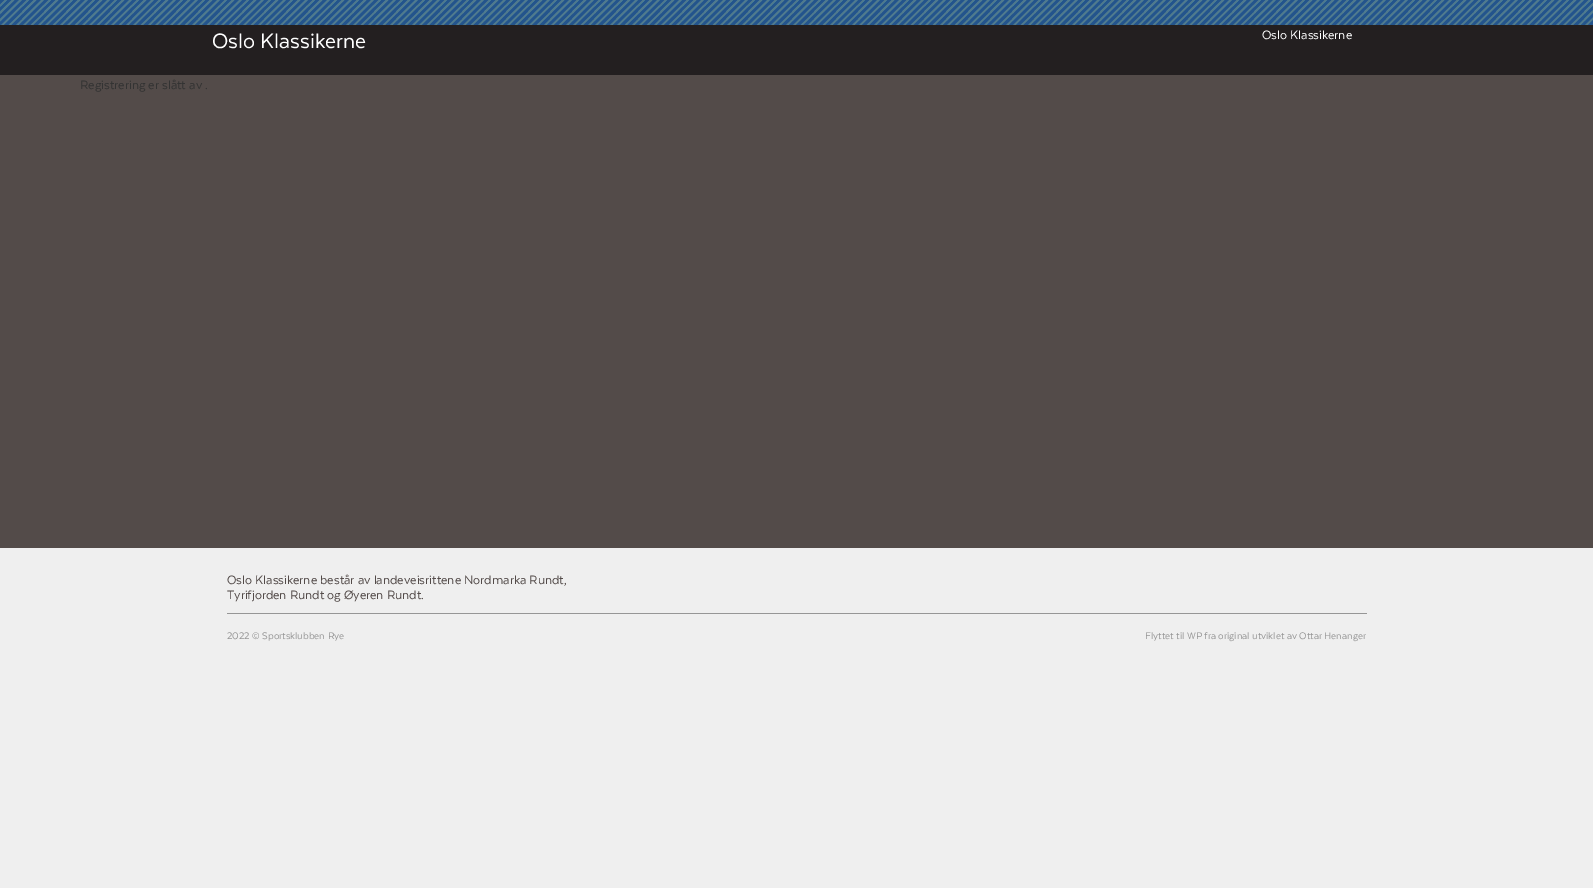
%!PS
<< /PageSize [1593 888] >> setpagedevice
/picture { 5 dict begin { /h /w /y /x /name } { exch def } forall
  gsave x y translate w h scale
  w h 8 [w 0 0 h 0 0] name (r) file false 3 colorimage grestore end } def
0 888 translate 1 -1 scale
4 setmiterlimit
0.325 0.294 0.286 setrgbcolor
0 0 1593 888 rectfill
0.137 0.329 0.549 setrgbcolor
0 0 1593 25 rectfill
(img1.rgb) 0 0 1593 25 picture
0.137 0.122 0.125 setrgbcolor
0 25 1593 50 rectfill
/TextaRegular-Regular [24 0 0 -24 0 0] selectfont
1 setgray
212 48 moveto (Oslo Klassikerne) show
/TextaRegular-Regular [14 0 0 -14 0 0] selectfont
1262 39 moveto (Oslo Klassikerne) show
0.2 setgray
80 89 moveto (Registrering er slått av .) show
0.937 setgray
0 548 1593 340 rectfill
0.325 0.294 0.286 setrgbcolor
227 584 moveto (Oslo Klassikerne består av landeveisrittene Nordmarka Rundt,) show
227 599 moveto (Tyrifjorden Rundt og Øyeren Rundt.) show
0.588 setgray
227 613 1140 1 rectfill
/TextaRegular-Regular [11 0 0 -11 0 0] selectfont
227 639 moveto (2022 © Sportsklubben Rye) show
1145 639 moveto (Flyttet til WP fra original utviklet av Ottar Henanger) show
showpage
